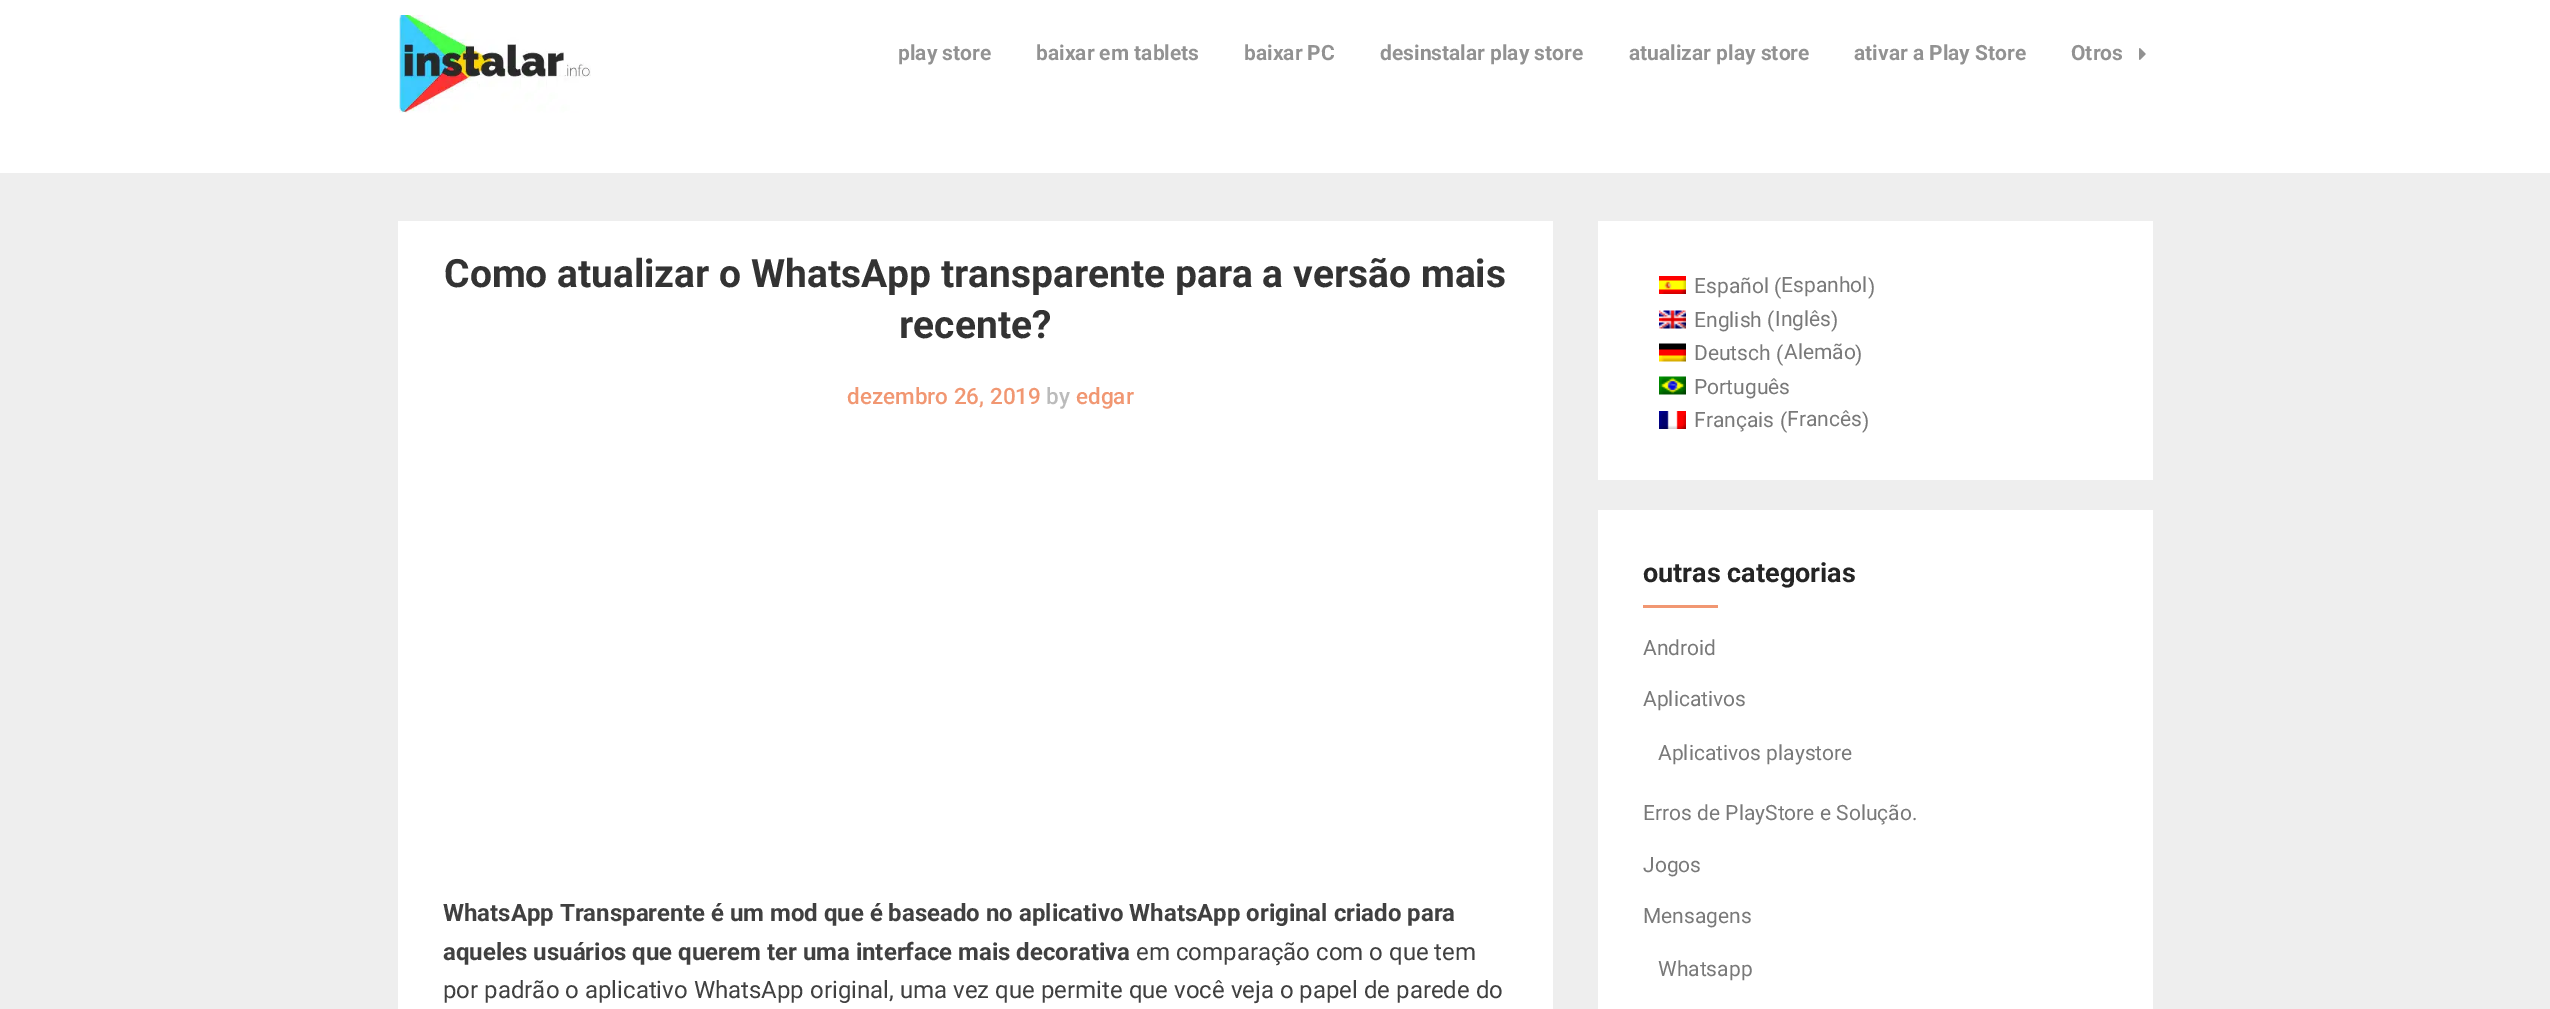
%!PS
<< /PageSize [2550 1009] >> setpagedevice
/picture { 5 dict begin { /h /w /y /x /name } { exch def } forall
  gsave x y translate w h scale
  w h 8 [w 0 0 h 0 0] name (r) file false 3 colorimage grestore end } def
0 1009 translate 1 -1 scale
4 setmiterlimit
0.933 setgray
0 0 2550 1009 rectfill
1 setgray
0 0 2550 173 rectfill
(img1.rgb) 399 15 192 98 picture
/Roboto-Bold [21 0 0 -21 0 0] selectfont
0.573 setgray
898 60 moveto (play store) show
1036 60 moveto (baixar em tablets) show
1244 60 moveto (baixar PC) show
1380 60 moveto (desinstalar play store) show
1629 60 moveto (atualizar play store) show
1854 60 moveto (ativar a Play Store) show
2071 60 moveto (Otros) show
(img2.rgb) 2139 48 7 12 picture
1 setgray
398 221 1155 788 rectfill
/Roboto-Bold [39 0 0 -39 0 0] selectfont
0.2 setgray
444 287 moveto (Como atualizar o WhatsApp transparente para a versão mais) show
899 338 moveto (recente?) show
/Roboto-Medium [22.5 0 0 -22.5 0 0] selectfont
0.945 0.592 0.447 setrgbcolor
847 404 moveto (dezembro 26, 2019) show
0.733 setgray
1046 404 moveto (by) show
0.945 0.592 0.447 setrgbcolor
1076 404 moveto (edgar) show
/Roboto-Bold [24 0 0 -24 0 0] selectfont
0.251 setgray
443 921 moveto (WhatsApp Transparente é um mod que é baseado no aplicativo WhatsApp original criado para) show
443 960 moveto (aqueles usuários que querem ter uma interface mais decorativa) show
/Roboto-Regular [24 0 0 -24 0 0] selectfont
1136 960 moveto (em comparação com o que tem) show
443 998 moveto (por padrão o aplicativo WhatsApp original, uma vez que permite que você veja o papel de parede do) show
1 setgray
1598 221 555 259 rectfill
(img3.rgb) 1659 276 27 18 picture
/Roboto-Regular [21 0 0 -21 0 0] selectfont
0.475 setgray
1694 293 moveto (Español) show
1774 294 moveto (\() show
1781 292 moveto (Espanhol) show
1868 294 moveto (\)) show
(img4.rgb) 1659 310 27 19 picture
1694 327 moveto (English \() show
1775 326 moveto (Inglês) show
1831 327 moveto (\)) show
(img5.rgb) 1659 343 27 19 picture
1694 360 moveto (Deutsch) show
1776 361 moveto (\() show
1784 359 moveto (Alemão) show
1855 361 moveto (\)) show
(img6.rgb) 1659 376 27 19 picture
1694 394 moveto (Português) show
(img7.rgb) 1659 411 27 18 picture
1694 427 moveto (Français) show
1780 428 moveto (\() show
1787 426 moveto (Francês) show
1862 428 moveto (\)) show
1 setgray
1598 510 555 499 rectfill
/Roboto-Bold [27 0 0 -27 0 0] selectfont
0.145 setgray
1643 582 moveto (outras categorias) show
0.945 0.592 0.447 setrgbcolor
1643 605 75 3 rectfill
/Roboto-Regular [21 0 0 -21 0 0] selectfont
0.475 setgray
1643 655 moveto (Android) show
1643 706 moveto (Aplicativos) show
1658 760 moveto (Aplicativos playstore) show
1643 820 moveto (Erros de PlayStore e Solução.) show
1643 872 moveto (Jogos) show
1643 923 moveto (Mensagens) show
1658 976 moveto (Whatsapp) show
showpage
